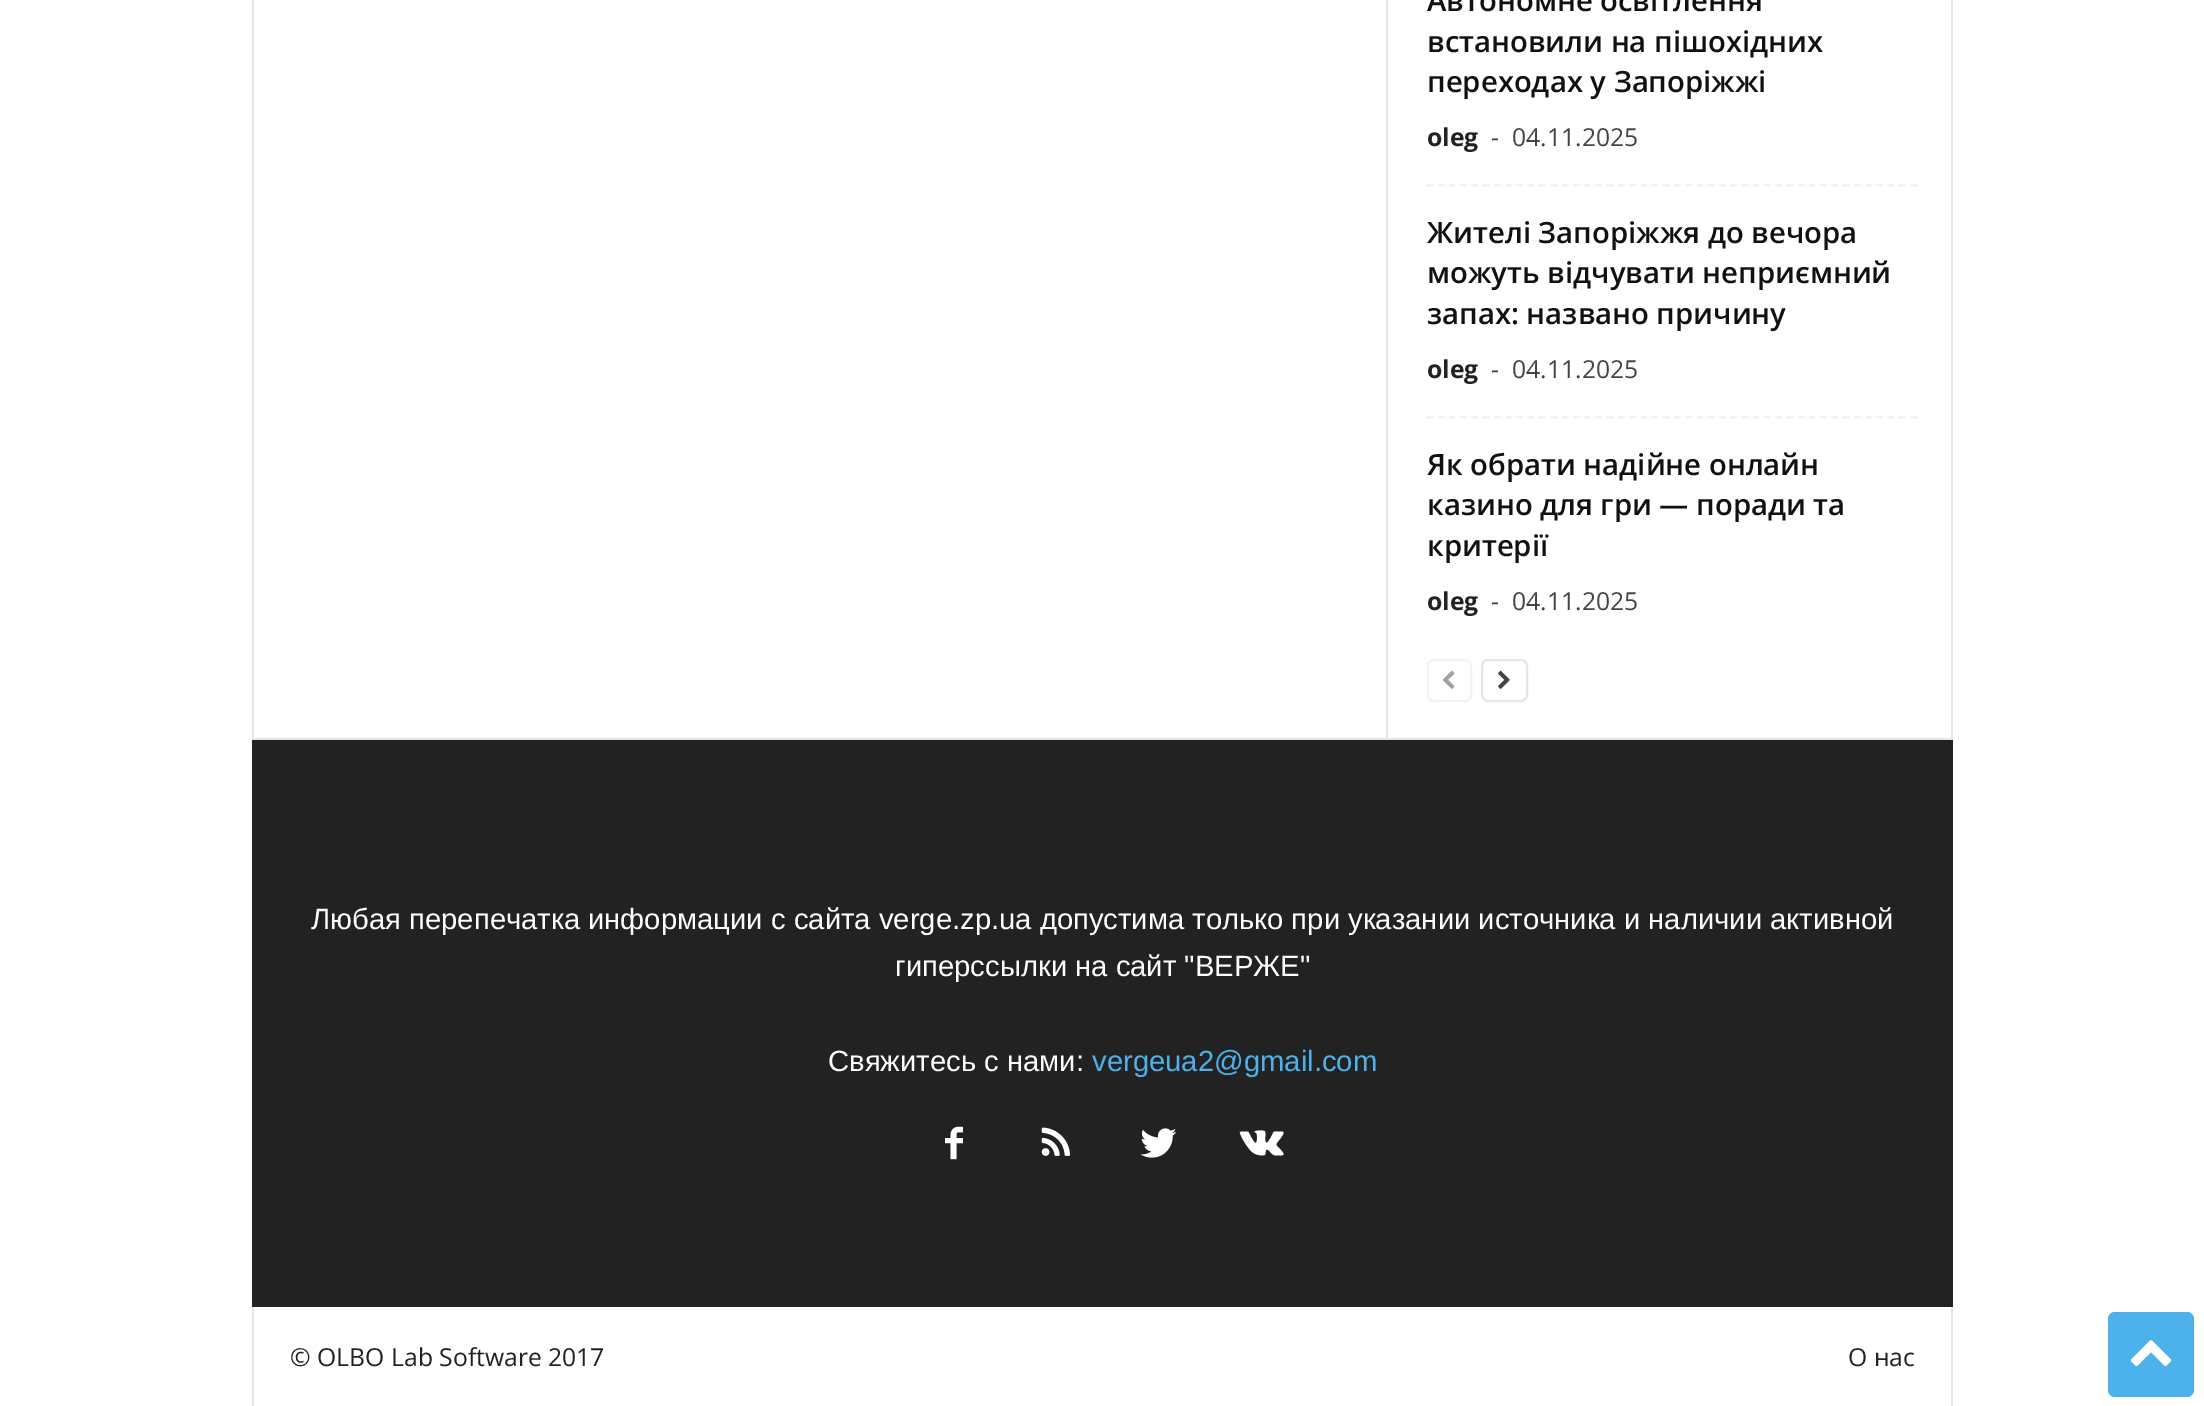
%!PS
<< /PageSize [2204 1406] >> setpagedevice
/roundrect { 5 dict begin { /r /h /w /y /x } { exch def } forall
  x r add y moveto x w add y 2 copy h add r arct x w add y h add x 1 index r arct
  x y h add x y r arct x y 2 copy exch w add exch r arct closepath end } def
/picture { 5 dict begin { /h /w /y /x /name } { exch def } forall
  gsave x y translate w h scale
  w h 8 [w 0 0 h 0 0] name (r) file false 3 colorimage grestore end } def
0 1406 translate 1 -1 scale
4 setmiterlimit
1 setgray
0 0 2204 1406 rectfill
0.902 setgray
252 738 1701 2 rectfill
252 0 2 738 rectfill
1386 0 2 738 rectfill
0.945 setgray
2.2 setlinewidth
[6.75 4.5] 0 setdash
newpath 1426.5 185.5 moveto 1917 185.5 lineto stroke
/OpenSans-SemiBold [29.25 0 0 -29.25 0 0] selectfont
0.067 setgray
1427 11 moveto (Автономне освітлення) show
1427 52 moveto (встановили на пішохідних) show
1427 92 moveto (переходах у Запоріжжі) show
/OpenSans-Bold [24.75 0 0 -24.75 0 0] selectfont
0.133 setgray
1427 146 moveto (oleg) show
/OpenSans-Regular [24.75 0 0 -24.75 0 0] selectfont
0.267 setgray
1491 146 moveto (-) show
1512 146 moveto (04.11.2025) show
0.945 setgray
newpath 1426.5 417.5 moveto 1917 417.5 lineto stroke
/OpenSans-SemiBold [29.25 0 0 -29.25 0 0] selectfont
0.067 setgray
1427 243 moveto (Жителі Запоріжжя до вечора) show
1427 283 moveto (можуть відчувати неприємний) show
1427 324 moveto (запах: названо причину) show
/OpenSans-Bold [24.75 0 0 -24.75 0 0] selectfont
0.133 setgray
1427 378 moveto (oleg) show
/OpenSans-Regular [24.75 0 0 -24.75 0 0] selectfont
0.267 setgray
1491 378 moveto (-) show
1512 378 moveto (04.11.2025) show
/OpenSans-SemiBold [29.25 0 0 -29.25 0 0] selectfont
0.067 setgray
1427 475 moveto (Як обрати надійне онлайн) show
1427 515 moveto (казино для гри — поради та) show
1427 556 moveto (критерії) show
/OpenSans-Bold [24.75 0 0 -24.75 0 0] selectfont
0.133 setgray
1427 610 moveto (oleg) show
/OpenSans-Regular [24.75 0 0 -24.75 0 0] selectfont
0.267 setgray
1491 610 moveto (-) show
1512 610 moveto (04.11.2025) show
0.953 setgray
2 setlinewidth
[] 0 setdash
1428 660 43 41 6 roundrect stroke
(img1.rgb) 1442 670 13 19 picture
0.902 setgray
1482 660 45 41 6 roundrect stroke
(img2.rgb) 1498 670 12 19 picture
1951 0 2 738 rectfill
0.133 setgray
252 740 1701 567 rectfill
/LiberationSans-Regular [29.25 0 0 -29.25 0 0] selectfont
1 setgray
311 929 moveto (Любая перепечатка информации с сайта verge.zp.ua допустима только при указании источника и наличии активной) show
895 976 moveto (гиперссылки на сайт "ВЕРЖЕ") show
828 1071 moveto (Свяжитесь с нами:) show
0.302 0.698 0.925 setrgbcolor
1092 1071 moveto (vergeua2@gmail.com) show
(img3.rgb) 945 1126 18 34 picture
(img4.rgb) 1041 1127 30 29 picture
(img5.rgb) 1140 1128 37 30 picture
(img6.rgb) 1239 1130 45 26 picture
0.902 setgray
252 1307 2 99 rectfill
/OpenSans-Regular [24.75 0 0 -24.75 0 0] selectfont
0.133 setgray
290 1366 moveto (© OLBO Lab Software 2017) show
1848 1366 moveto (О нас) show
0.902 setgray
1951 1307 2 99 rectfill
0.302 0.698 0.925 setrgbcolor
2108 1312 86 85 7 roundrect fill
(img7.rgb) 2130 1340 42 27 picture
showpage
